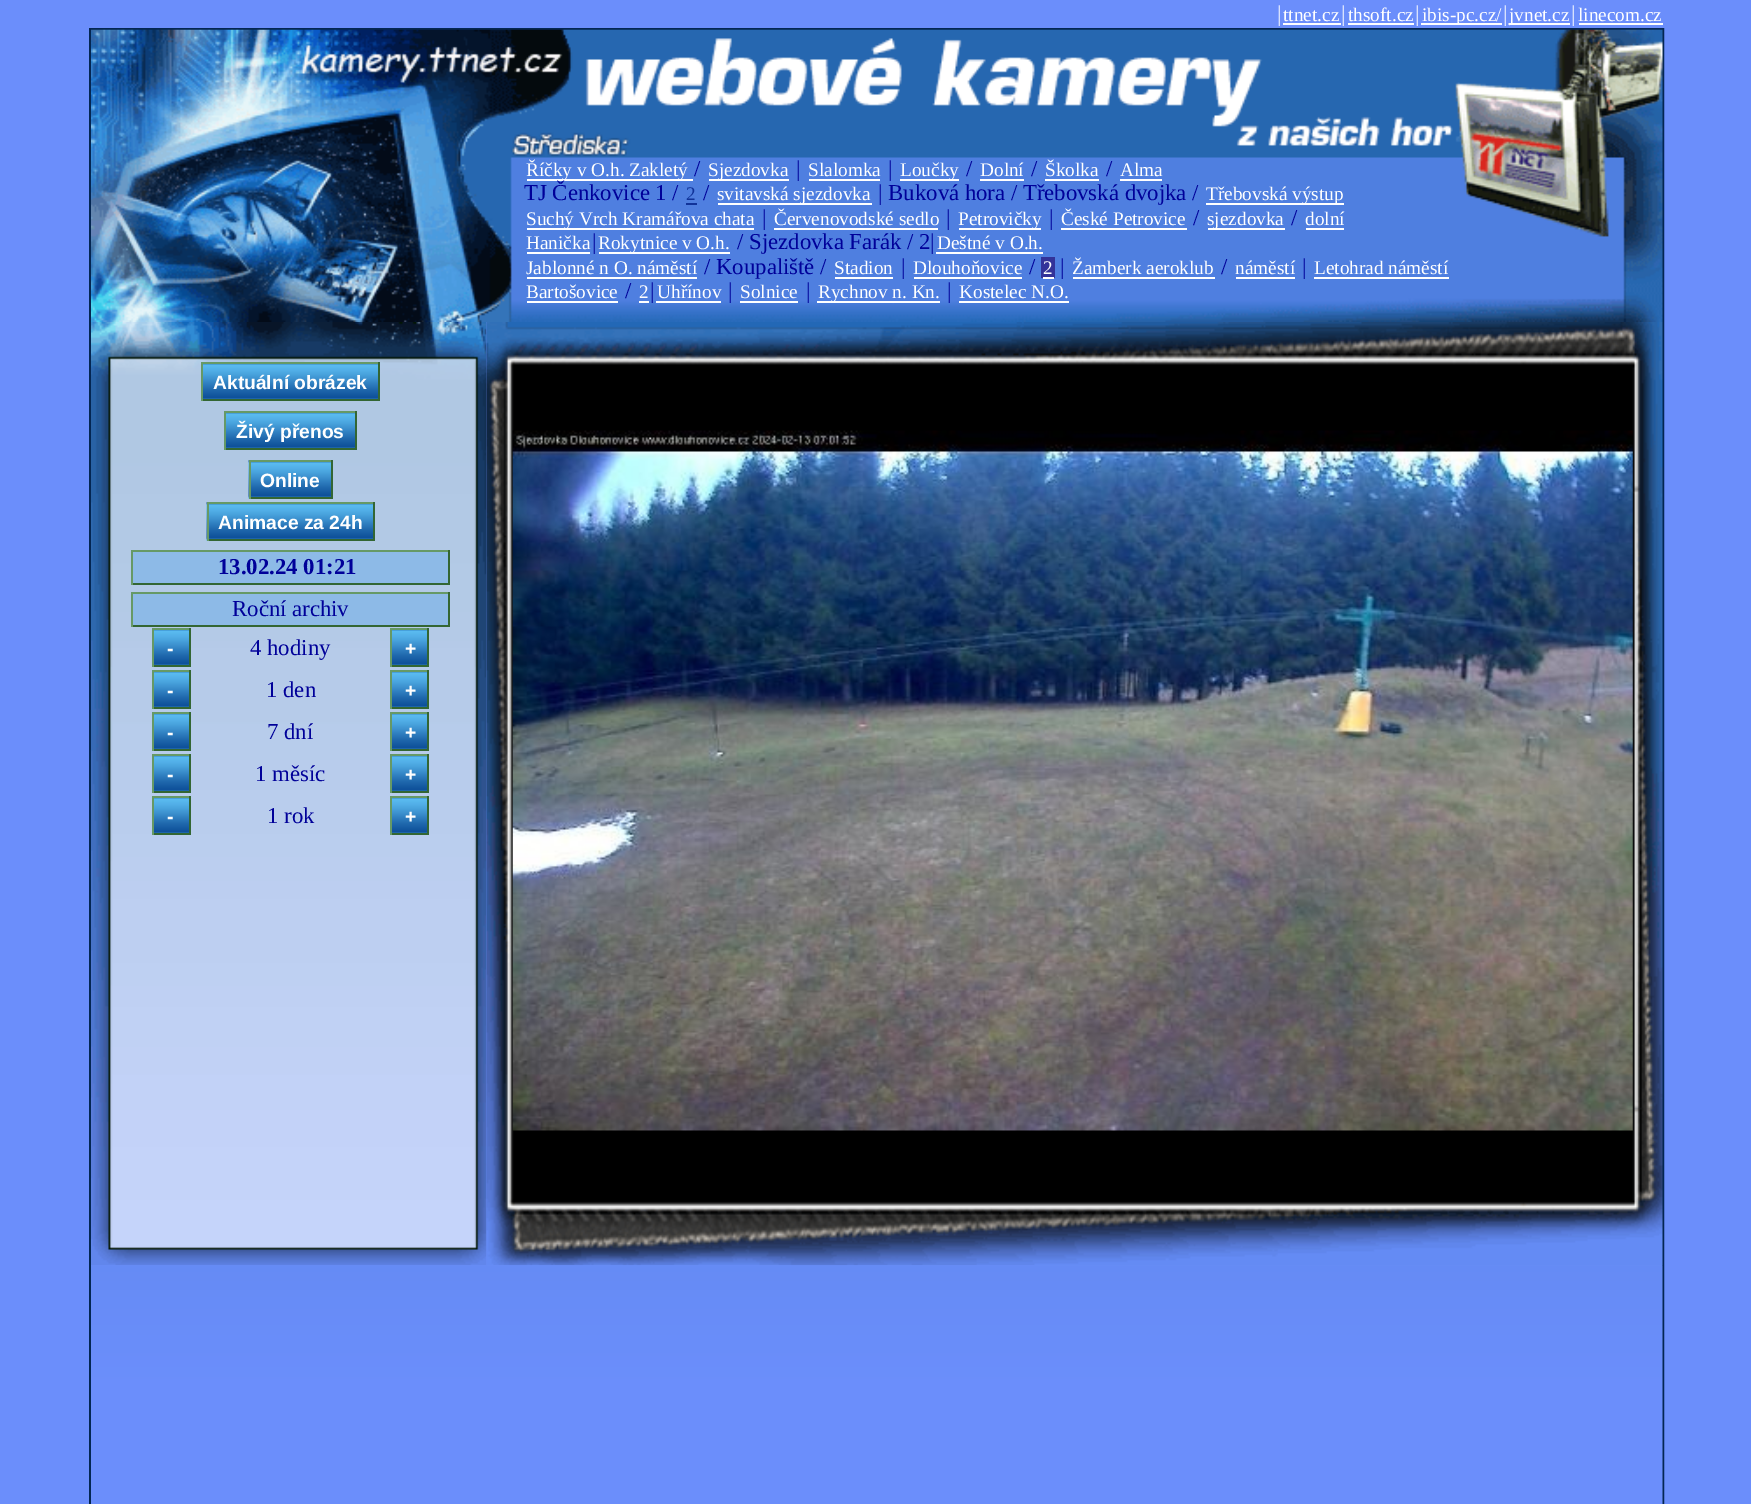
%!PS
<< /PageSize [1751 1504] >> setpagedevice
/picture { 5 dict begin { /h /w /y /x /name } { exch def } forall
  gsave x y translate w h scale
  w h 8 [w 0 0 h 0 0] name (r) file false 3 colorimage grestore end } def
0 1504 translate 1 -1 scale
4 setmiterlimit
0.42 0.557 0.984 setrgbcolor
0 0 1751 1504 rectfill
/LiberationSerif-Regular [22.75 0 0 -22.75 0 0] selectfont
1 setgray
1277 21 moveto (|) show
/LiberationSerif-Regular [19.25 0 0 -19.25 0 0] selectfont
1283 21 moveto (ttnet.cz) show
1283 23 58 2 rectfill
/LiberationSerif-Regular [22.75 0 0 -22.75 0 0] selectfont
1341 21 moveto (|) show
/LiberationSerif-Regular [19.25 0 0 -19.25 0 0] selectfont
1348 21 moveto (thsoft.cz) show
1348 23 66 2 rectfill
/LiberationSerif-Regular [22.75 0 0 -22.75 0 0] selectfont
1415 21 moveto (|) show
1421 23 81 2 rectfill
/LiberationSerif-Regular [19.25 0 0 -19.25 0 0] selectfont
1422 21 moveto (ibis-pc.cz/) show
/LiberationSerif-Regular [22.75 0 0 -22.75 0 0] selectfont
1503 21 moveto (|) show
1509 23 61 2 rectfill
/LiberationSerif-Regular [19.25 0 0 -19.25 0 0] selectfont
1509 21 moveto (jvnet.cz) show
/LiberationSerif-Regular [22.75 0 0 -22.75 0 0] selectfont
1571 21 moveto (|) show
/LiberationSerif-Regular [19.25 0 0 -19.25 0 0] selectfont
1578 21 moveto (linecom.cz) show
1579 23 84 2 rectfill
0.016 0.149 0.322 setrgbcolor
2 setlinewidth
90 29 1573 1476 rectstroke
(img1.rgb) 91 29 1572 293 picture
1 setgray
527 179 166 2 rectfill
526 176 moveto (Říčky v O.h. Zakletý) show
/LiberationSerif-Regular [22.75 0 0 -22.75 0 0] selectfont
0 0 0.6 setrgbcolor
694 176 moveto (/) show
1 setgray
709 179 80 2 rectfill
/LiberationSerif-Regular [19.25 0 0 -19.25 0 0] selectfont
708 176 moveto (Sjezdovka) show
/LiberationSerif-Regular [22.75 0 0 -22.75 0 0] selectfont
0 0 0.6 setrgbcolor
796 176 moveto (|) show
/LiberationSerif-Regular [19.25 0 0 -19.25 0 0] selectfont
1 setgray
808 176 moveto (Slalomka) show
809 179 71 2 rectfill
/LiberationSerif-Regular [22.75 0 0 -22.75 0 0] selectfont
0 0 0.6 setrgbcolor
888 176 moveto (|) show
1 setgray
900 179 59 2 rectfill
/LiberationSerif-Regular [19.25 0 0 -19.25 0 0] selectfont
900 176 moveto (Loučky) show
/LiberationSerif-Regular [22.75 0 0 -22.75 0 0] selectfont
0 0 0.6 setrgbcolor
966 176 moveto (/) show
/LiberationSerif-Regular [19.25 0 0 -19.25 0 0] selectfont
1 setgray
980 176 moveto (Dolní) show
980 179 44 2 rectfill
/LiberationSerif-Regular [22.75 0 0 -22.75 0 0] selectfont
0 0 0.6 setrgbcolor
1031 176 moveto (/) show
/LiberationSerif-Regular [19.25 0 0 -19.25 0 0] selectfont
1 setgray
1045 176 moveto (Školka) show
1045 179 54 2 rectfill
/LiberationSerif-Regular [22.75 0 0 -22.75 0 0] selectfont
0 0 0.6 setrgbcolor
1106 176 moveto (/) show
/LiberationSerif-Regular [19.25 0 0 -19.25 0 0] selectfont
1 setgray
1120 176 moveto (Alma) show
1120 179 42 2 rectfill
/LiberationSerif-Regular [22.75 0 0 -22.75 0 0] selectfont
0 0 0.6 setrgbcolor
524 200 moveto (TJ Čenkovice 1 /) show
/LiberationSerif-Regular [19.25 0 0 -19.25 0 0] selectfont
0.067 0.2 0.6 setrgbcolor
686 200 moveto (2) show
686 203 11 2 rectfill
/LiberationSerif-Regular [22.75 0 0 -22.75 0 0] selectfont
0 0 0.6 setrgbcolor
703 200 moveto (/) show
1 setgray
718 203 154 2 rectfill
/LiberationSerif-Regular [19.25 0 0 -19.25 0 0] selectfont
717 200 moveto (svitavská sjezdovka) show
/LiberationSerif-Regular [22.75 0 0 -22.75 0 0] selectfont
0 0 0.6 setrgbcolor
878 200 moveto (| Buková hora / Třebovská dvojka /) show
1 setgray
1206 203 138 2 rectfill
/LiberationSerif-Regular [19.25 0 0 -19.25 0 0] selectfont
1206 200 moveto (Třebovská výstup) show
527 228 227 2 rectfill
526 225 moveto (Suchý Vrch Kramářova chata) show
/LiberationSerif-Regular [22.75 0 0 -22.75 0 0] selectfont
0 0 0.6 setrgbcolor
762 225 moveto (|) show
/LiberationSerif-Regular [19.25 0 0 -19.25 0 0] selectfont
1 setgray
774 225 moveto (Červenovodské sedlo) show
774 228 164 2 rectfill
/LiberationSerif-Regular [22.75 0 0 -22.75 0 0] selectfont
0 0 0.6 setrgbcolor
946 225 moveto (|) show
1 setgray
959 228 82 2 rectfill
/LiberationSerif-Regular [19.25 0 0 -19.25 0 0] selectfont
958 225 moveto (Petrovičky) show
/LiberationSerif-Regular [22.75 0 0 -22.75 0 0] selectfont
0 0 0.6 setrgbcolor
1049 225 moveto (|) show
/LiberationSerif-Regular [19.25 0 0 -19.25 0 0] selectfont
1 setgray
1061 225 moveto (České Petrovice) show
1061 228 126 2 rectfill
/LiberationSerif-Regular [22.75 0 0 -22.75 0 0] selectfont
0 0 0.6 setrgbcolor
1193 225 moveto (/) show
1 setgray
1208 228 77 2 rectfill
/LiberationSerif-Regular [19.25 0 0 -19.25 0 0] selectfont
1207 225 moveto (sjezdovka) show
/LiberationSerif-Regular [22.75 0 0 -22.75 0 0] selectfont
0 0 0.6 setrgbcolor
1291 225 moveto (/) show
/LiberationSerif-Regular [19.25 0 0 -19.25 0 0] selectfont
1 setgray
1305 225 moveto (dolní) show
1306 228 38 2 rectfill
526 249 moveto (Hanička) show
527 252 63 2 rectfill
/LiberationSerif-Regular [22.75 0 0 -22.75 0 0] selectfont
0 0 0.6 setrgbcolor
592 249 moveto (|) show
1 setgray
599 252 131 2 rectfill
/LiberationSerif-Regular [19.25 0 0 -19.25 0 0] selectfont
598 249 moveto (Rokytnice v O.h.) show
/LiberationSerif-Regular [22.75 0 0 -22.75 0 0] selectfont
0 0 0.6 setrgbcolor
737 249 moveto (/ Sjezdovka Farák / 2|) show
/LiberationSerif-Regular [19.25 0 0 -19.25 0 0] selectfont
1 setgray
937 249 moveto (Deštné v O.h.) show
936 252 107 2 rectfill
526 274 moveto (Jablonné n O. náměstí) show
527 277 170 2 rectfill
/LiberationSerif-Regular [22.75 0 0 -22.75 0 0] selectfont
0 0 0.6 setrgbcolor
704 274 moveto (/ Koupaliště /) show
/LiberationSerif-Regular [19.25 0 0 -19.25 0 0] selectfont
1 setgray
834 274 moveto (Stadion) show
835 277 58 2 rectfill
/LiberationSerif-Regular [22.75 0 0 -22.75 0 0] selectfont
0 0 0.6 setrgbcolor
901 274 moveto (|) show
/LiberationSerif-Regular [19.25 0 0 -19.25 0 0] selectfont
1 setgray
913 274 moveto (Dlouhoňovice) show
914 277 108 2 rectfill
/LiberationSerif-Regular [22.75 0 0 -22.75 0 0] selectfont
0 0 0.6 setrgbcolor
1029 274 moveto (/) show
0.2 0.2 0.6 setrgbcolor
1041 257 14 21 rectfill
/LiberationSerif-Regular [19.25 0 0 -19.25 0 0] selectfont
1 setgray
1043 274 moveto (2) show
1043 277 11 2 rectfill
/LiberationSerif-Regular [22.75 0 0 -22.75 0 0] selectfont
0 0 0.6 setrgbcolor
1060 274 moveto (|) show
/LiberationSerif-Regular [19.25 0 0 -19.25 0 0] selectfont
1 setgray
1072 274 moveto (Žamberk aeroklub) show
1073 277 142 2 rectfill
/LiberationSerif-Regular [22.75 0 0 -22.75 0 0] selectfont
0 0 0.6 setrgbcolor
1221 274 moveto (/) show
/LiberationSerif-Regular [19.25 0 0 -19.25 0 0] selectfont
1 setgray
1235 274 moveto (náměstí) show
1236 277 59 2 rectfill
/LiberationSerif-Regular [22.75 0 0 -22.75 0 0] selectfont
0 0 0.6 setrgbcolor
1302 274 moveto (|) show
/LiberationSerif-Regular [19.25 0 0 -19.25 0 0] selectfont
1 setgray
1314 274 moveto (Letohrad náměstí) show
1314 277 135 2 rectfill
526 298 moveto (Bartošovice) show
527 301 91 2 rectfill
/LiberationSerif-Regular [22.75 0 0 -22.75 0 0] selectfont
0 0 0.6 setrgbcolor
625 298 moveto (/) show
/LiberationSerif-Regular [19.25 0 0 -19.25 0 0] selectfont
1 setgray
639 298 moveto (2) show
639 301 10 2 rectfill
/LiberationSerif-Regular [22.75 0 0 -22.75 0 0] selectfont
0 0 0.6 setrgbcolor
650 298 moveto (|) show
/LiberationSerif-Regular [19.25 0 0 -19.25 0 0] selectfont
1 setgray
657 298 moveto (Uhřínov) show
656 301 65 2 rectfill
/LiberationSerif-Regular [22.75 0 0 -22.75 0 0] selectfont
0 0 0.6 setrgbcolor
728 298 moveto (|) show
/LiberationSerif-Regular [19.25 0 0 -19.25 0 0] selectfont
1 setgray
740 298 moveto (Solnice) show
740 301 58 2 rectfill
/LiberationSerif-Regular [22.75 0 0 -22.75 0 0] selectfont
0 0 0.6 setrgbcolor
806 298 moveto (|) show
1 setgray
817 301 123 2 rectfill
/LiberationSerif-Regular [19.25 0 0 -19.25 0 0] selectfont
818 298 moveto (Rychnov n. Kn.) show
/LiberationSerif-Regular [22.75 0 0 -22.75 0 0] selectfont
0 0 0.6 setrgbcolor
947 298 moveto (|) show
/LiberationSerif-Regular [19.25 0 0 -19.25 0 0] selectfont
1 setgray
959 298 moveto (Kostelec N.O.) show
959 301 110 2 rectfill
(img2.rgb) 91 322 396 944 picture
(img3.rgb) 203 364 175 35 picture
0.4 0.6 0.4 setrgbcolor
201 362 179 2 rectfill
0.2 0.4 0.2 setrgbcolor
378 362 2 39 rectfill
201 399 179 2 rectfill
0.4 0.6 0.4 setrgbcolor
201 362 2 39 rectfill
/LiberationSans-Bold [19.25 0 0 -19.25 0 0] selectfont
1 setgray
213 389 moveto (Aktuální obrázek) show
(img4.rgb) 226 413 129 35 picture
0.4 0.6 0.4 setrgbcolor
224 411 133 2 rectfill
0.2 0.4 0.2 setrgbcolor
355 411 2 39 rectfill
224 448 133 2 rectfill
0.4 0.6 0.4 setrgbcolor
224 411 2 39 rectfill
1 setgray
236 438 moveto (Živý přenos) show
(img5.rgb) 248 460 83 39 picture
0.4 0.6 0.4 setrgbcolor
249 460 84 2 rectfill
0.2 0.4 0.2 setrgbcolor
331 460 2 39 rectfill
249 497 84 2 rectfill
0.4 0.6 0.4 setrgbcolor
249 460 2 39 rectfill
1 setgray
260 487 moveto (Online) show
(img6.rgb) 206 502 167 39 picture
0.4 0.6 0.4 setrgbcolor
207 502 168 2 rectfill
0.2 0.4 0.2 setrgbcolor
373 502 2 39 rectfill
207 539 168 2 rectfill
0.4 0.6 0.4 setrgbcolor
207 502 2 39 rectfill
1 setgray
218 529 moveto (Animace za 24h) show
0.553 0.729 0.906 setrgbcolor
133 552 315 31 rectfill
0.4 0.6 0.4 setrgbcolor
131 550 319 2 rectfill
0.2 0.4 0.2 setrgbcolor
448 550 2 35 rectfill
131 583 319 2 rectfill
0.4 0.6 0.4 setrgbcolor
131 550 2 35 rectfill
/LiberationSerif-Bold [22.75 0 0 -22.75 0 0] selectfont
0 0 0.6 setrgbcolor
218 574 moveto (13.02.24 01:21) show
0.553 0.729 0.906 setrgbcolor
133 594 315 31 rectfill
0.4 0.6 0.4 setrgbcolor
131 592 319 2 rectfill
0.2 0.4 0.2 setrgbcolor
448 592 2 35 rectfill
131 625 319 2 rectfill
0.4 0.6 0.4 setrgbcolor
131 592 2 35 rectfill
/LiberationSerif-Regular [22.75 0 0 -22.75 0 0] selectfont
0 0 0.6 setrgbcolor
232 616 moveto (Roční archiv) show
(img7.rgb) 154 630 35 35 picture
0.4 0.6 0.4 setrgbcolor
152 628 39 2 rectfill
0.2 0.4 0.2 setrgbcolor
189 628 2 39 rectfill
152 665 39 2 rectfill
0.4 0.6 0.4 setrgbcolor
152 628 2 39 rectfill
/LiberationSans-Bold [19.25 0 0 -19.25 0 0] selectfont
1 setgray
167 655 moveto (-) show
/LiberationSerif-Regular [22.75 0 0 -22.75 0 0] selectfont
0 0 0.6 setrgbcolor
250 655 moveto (4 hodiny) show
(img7.rgb) 392 630 35 35 picture
0.4 0.6 0.4 setrgbcolor
390 628 39 2 rectfill
0.2 0.4 0.2 setrgbcolor
427 628 2 39 rectfill
390 665 39 2 rectfill
0.4 0.6 0.4 setrgbcolor
390 628 2 39 rectfill
/LiberationSans-Bold [19.25 0 0 -19.25 0 0] selectfont
1 setgray
405 655 moveto (+) show
(img7.rgb) 154 672 35 35 picture
0.4 0.6 0.4 setrgbcolor
152 670 39 2 rectfill
0.2 0.4 0.2 setrgbcolor
189 670 2 39 rectfill
152 707 39 2 rectfill
0.4 0.6 0.4 setrgbcolor
152 670 2 39 rectfill
1 setgray
167 697 moveto (-) show
/LiberationSerif-Regular [22.75 0 0 -22.75 0 0] selectfont
0 0 0.6 setrgbcolor
266 697 moveto (1 den) show
(img7.rgb) 392 672 35 35 picture
0.4 0.6 0.4 setrgbcolor
390 670 39 2 rectfill
0.2 0.4 0.2 setrgbcolor
427 670 2 39 rectfill
390 707 39 2 rectfill
0.4 0.6 0.4 setrgbcolor
390 670 2 39 rectfill
/LiberationSans-Bold [19.25 0 0 -19.25 0 0] selectfont
1 setgray
405 697 moveto (+) show
(img7.rgb) 154 714 35 35 picture
0.4 0.6 0.4 setrgbcolor
152 712 39 2 rectfill
0.2 0.4 0.2 setrgbcolor
189 712 2 39 rectfill
152 749 39 2 rectfill
0.4 0.6 0.4 setrgbcolor
152 712 2 39 rectfill
1 setgray
167 739 moveto (-) show
/LiberationSerif-Regular [22.75 0 0 -22.75 0 0] selectfont
0 0 0.6 setrgbcolor
267 739 moveto (7 dní) show
(img7.rgb) 392 714 35 35 picture
0.4 0.6 0.4 setrgbcolor
390 712 39 2 rectfill
0.2 0.4 0.2 setrgbcolor
427 712 2 39 rectfill
390 749 39 2 rectfill
0.4 0.6 0.4 setrgbcolor
390 712 2 39 rectfill
/LiberationSans-Bold [19.25 0 0 -19.25 0 0] selectfont
1 setgray
405 739 moveto (+) show
(img7.rgb) 154 756 35 35 picture
0.4 0.6 0.4 setrgbcolor
152 754 39 2 rectfill
0.2 0.4 0.2 setrgbcolor
189 754 2 39 rectfill
152 791 39 2 rectfill
0.4 0.6 0.4 setrgbcolor
152 754 2 39 rectfill
1 setgray
167 781 moveto (-) show
/LiberationSerif-Regular [22.75 0 0 -22.75 0 0] selectfont
0 0 0.6 setrgbcolor
255 781 moveto (1 měsíc) show
(img7.rgb) 392 756 35 35 picture
0.4 0.6 0.4 setrgbcolor
390 754 39 2 rectfill
0.2 0.4 0.2 setrgbcolor
427 754 2 39 rectfill
390 791 39 2 rectfill
0.4 0.6 0.4 setrgbcolor
390 754 2 39 rectfill
/LiberationSans-Bold [19.25 0 0 -19.25 0 0] selectfont
1 setgray
405 781 moveto (+) show
(img7.rgb) 154 798 35 35 picture
0.4 0.6 0.4 setrgbcolor
152 796 39 2 rectfill
0.2 0.4 0.2 setrgbcolor
189 796 2 39 rectfill
152 833 39 2 rectfill
0.4 0.6 0.4 setrgbcolor
152 796 2 39 rectfill
1 setgray
167 823 moveto (-) show
/LiberationSerif-Regular [22.75 0 0 -22.75 0 0] selectfont
0 0 0.6 setrgbcolor
267 823 moveto (1 rok) show
(img7.rgb) 392 798 35 35 picture
0.4 0.6 0.4 setrgbcolor
390 796 39 2 rectfill
0.2 0.4 0.2 setrgbcolor
427 796 2 39 rectfill
390 833 39 2 rectfill
0.4 0.6 0.4 setrgbcolor
390 796 2 39 rectfill
/LiberationSans-Bold [19.25 0 0 -19.25 0 0] selectfont
1 setgray
405 823 moveto (+) show
(img8.rgb) 486 322 1177 944 picture
(img9.rgb) 512 430 1121 701 picture
(img10.rgb) 91 1265 1572 239 picture
showpage
